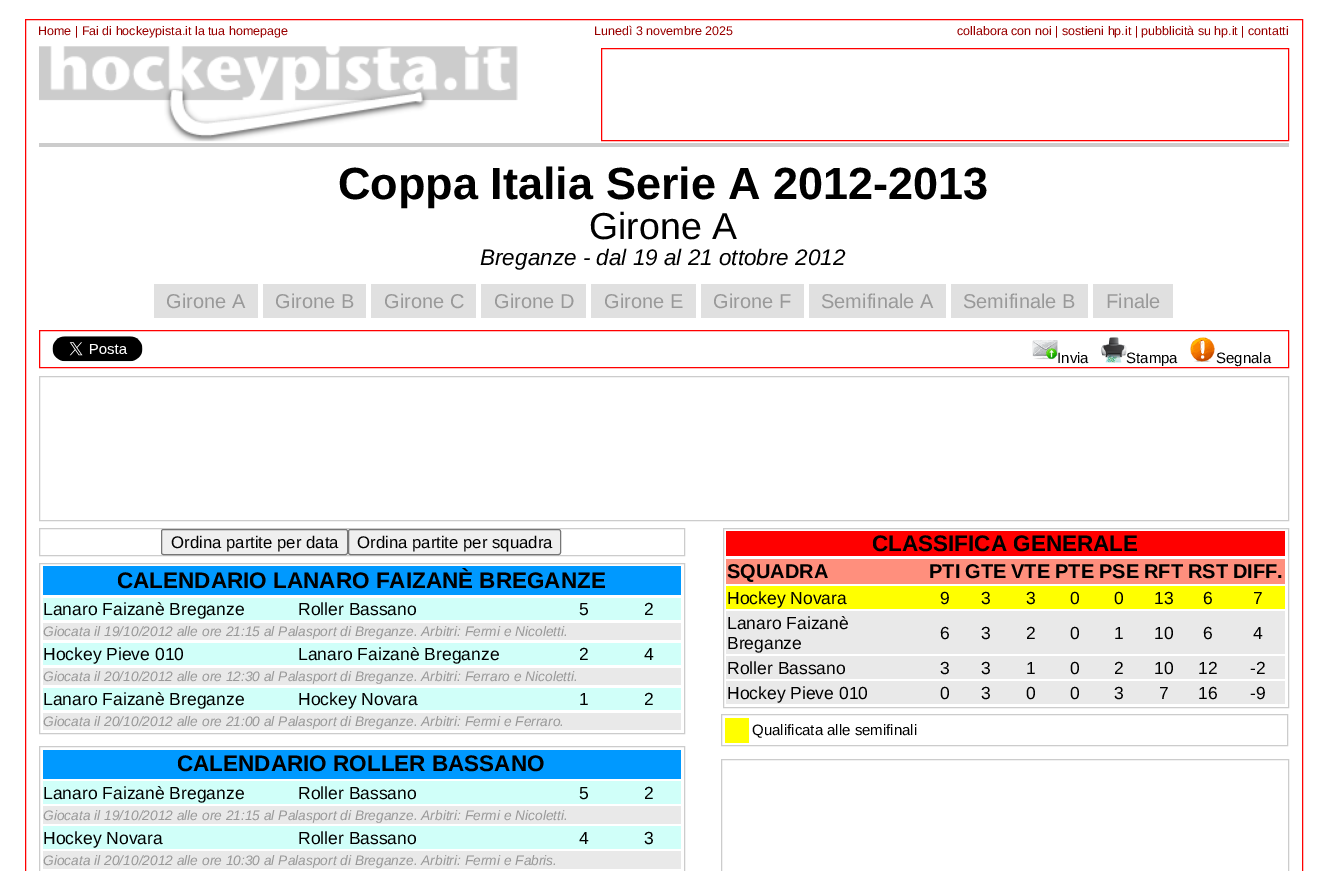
%!PS
<< /PageSize [1326 871] >> setpagedevice
/roundrect { 5 dict begin { /r /h /w /y /x } { exch def } forall
  x r add y moveto x w add y 2 copy h add r arct x w add y h add x 1 index r arct
  x y h add x y r arct x y 2 copy exch w add exch r arct closepath end } def
/picture { 5 dict begin { /h /w /y /x /name } { exch def } forall
  gsave x y translate w h scale
  w h 8 [w 0 0 h 0 0] name (r) file false 3 colorimage grestore end } def
0 871 translate 1 -1 scale
4 setmiterlimit
1 setgray
0 0 1326 871 rectfill
1 0 0 setrgbcolor
25.5 19.5 1277 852 rectstroke
/LiberationSans-Regular [12.5 0 0 -12.5 0 0] selectfont
0.6 0 0 setrgbcolor
38 35 moveto (Home | Fai di hockeypista.it la tua homepage) show
594 35 moveto (Lunedì 3 novembre 2025) show
957 35 moveto (collabora con noi | sostieni hp.it | pubblicità su hp.it | contatti) show
(img1.rgb) 39 46 479 96 picture
1 0 0 setrgbcolor
601.5 48.5 687 92 rectstroke
0.8 setgray
39 143 1250 4 rectfill
/LiberationSans-Bold [45 0 0 -45 0 0] selectfont
0 setgray
338 199 moveto (Coppa Italia Serie A 2012-2013) show
/LiberationSans-Regular [37.5 0 0 -37.5 0 0] selectfont
589 239 moveto (Girone A) show
/LiberationSans-Italic [22.5 0 0 -22.5 0 0] selectfont
480 265 moveto (Breganze - dal 19 al 21 ottobre 2012) show
0.878 setgray
154 284 104 34 rectfill
/LiberationSans-Regular [20 0 0 -20 0 0] selectfont
0.6 setgray
166 308 moveto (Girone A) show
0.878 setgray
263 284 103 34 rectfill
0.6 setgray
275 308 moveto (Girone B) show
0.878 setgray
371 284 105 34 rectfill
0.6 setgray
384 308 moveto (Girone C) show
0.878 setgray
481 284 105 34 rectfill
0.6 setgray
494 308 moveto (Girone D) show
0.878 setgray
591 284 105 34 rectfill
0.6 setgray
604 308 moveto (Girone E) show
0.878 setgray
701 284 103 34 rectfill
0.6 setgray
713 308 moveto (Girone F) show
0.878 setgray
809 284 137 34 rectfill
0.6 setgray
821 308 moveto (Semifinale A) show
0.878 setgray
951 284 137 34 rectfill
0.6 setgray
963 308 moveto (Semifinale B) show
0.878 setgray
1093 284 80 34 rectfill
0.6 setgray
1106 308 moveto (Finale) show
1 0 0 setrgbcolor
39.5 330.5 1249 37 rectstroke
(img2.rgb) 52 336 91 26 picture
(img3.rgb) 1032 340 26 20 picture
/LiberationSans-Regular [15 0 0 -15 0 0] selectfont
0 setgray
1057 363 moveto (Invia) show
(img4.rgb) 1101 337 26 26 picture
1126 363 moveto (Stampa) show
(img5.rgb) 1190 337 25 25 picture
1216 363 moveto (Segnala) show
0.8 setgray
39.5 376.5 1249 144 rectstroke
39.5 528.5 645 27 rectstroke
0.937 setgray
161.5 529.5 186 25 2 roundrect gsave fill grestore
0.463 setgray
stroke
/LiberationSans-Regular [16.75 0 0 -16.75 0 0] selectfont
0 setgray
171 548 moveto (Ordina partite per data) show
0.937 setgray
348.5 529.5 212 25 2 roundrect gsave fill grestore
0.463 setgray
stroke
0 setgray
357 548 moveto (Ordina partite per squadra) show
0.8 setgray
39.5 563.5 645 170 rectstroke
0 0.6 1 setrgbcolor
43 566 638 29 rectfill
/LiberationSans-Bold [22.5 0 0 -22.5 0 0] selectfont
0 setgray
117 588 moveto (CALENDARIO LANARO FAIZANÈ BREGANZE) show
0.816 1 0.976 setrgbcolor
43 598 638 22 rectfill
/LiberationSans-Regular [17.5 0 0 -17.5 0 0] selectfont
0 setgray
43 615 moveto (Lanaro Faizanè Breganze) show
298 615 moveto (Roller Bassano) show
579 615 moveto (5) show
644 615 moveto (2) show
0.914 setgray
43 623 638 17 rectfill
/LiberationSans-Italic [13.75 0 0 -13.75 0 0] selectfont
0.6 setgray
43 636 moveto (Giocata il 19/10/2012 alle ore 21:15 al Palasport di Breganze. Arbitri: Fermi e Nicoletti.) show
0.816 1 0.976 setrgbcolor
43 643 638 22 rectfill
/LiberationSans-Regular [17.5 0 0 -17.5 0 0] selectfont
0 setgray
43 660 moveto (Hockey Pieve 010) show
298 660 moveto (Lanaro Faizanè Breganze) show
579 660 moveto (2) show
644 660 moveto (4) show
0.914 setgray
43 668 638 17 rectfill
/LiberationSans-Italic [13.75 0 0 -13.75 0 0] selectfont
0.6 setgray
43 681 moveto (Giocata il 20/10/2012 alle ore 12:30 al Palasport di Breganze. Arbitri: Ferraro e Nicoletti.) show
0.816 1 0.976 setrgbcolor
43 688 638 22 rectfill
/LiberationSans-Regular [17.5 0 0 -17.5 0 0] selectfont
0 setgray
43 705 moveto (Lanaro Faizanè Breganze) show
298 705 moveto (Hockey Novara) show
579 705 moveto (1) show
644 705 moveto (2) show
0.914 setgray
43 713 638 17 rectfill
/LiberationSans-Italic [13.75 0 0 -13.75 0 0] selectfont
0.6 setgray
43 726 moveto (Giocata il 20/10/2012 alle ore 21:00 al Palasport di Breganze. Arbitri: Fermi e Ferraro.) show
0.8 setgray
39.5 746.5 645 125 rectstroke
0 0.6 1 setrgbcolor
43 750 638 29 rectfill
/LiberationSans-Bold [22.5 0 0 -22.5 0 0] selectfont
0 setgray
177 771 moveto (CALENDARIO ROLLER BASSANO) show
0.816 1 0.976 setrgbcolor
43 781 638 23 rectfill
/LiberationSans-Regular [17.5 0 0 -17.5 0 0] selectfont
0 setgray
43 799 moveto (Lanaro Faizanè Breganze) show
298 799 moveto (Roller Bassano) show
579 799 moveto (5) show
644 799 moveto (2) show
0.914 setgray
43 806 638 18 rectfill
/LiberationSans-Italic [13.75 0 0 -13.75 0 0] selectfont
0.6 setgray
43 820 moveto (Giocata il 19/10/2012 alle ore 21:15 al Palasport di Breganze. Arbitri: Fermi e Nicoletti.) show
0.816 1 0.976 setrgbcolor
43 826 638 23 rectfill
/LiberationSans-Regular [17.5 0 0 -17.5 0 0] selectfont
0 setgray
43 844 moveto (Hockey Novara) show
298 844 moveto (Roller Bassano) show
579 844 moveto (4) show
644 844 moveto (3) show
0.914 setgray
43 851 638 18 rectfill
/LiberationSans-Italic [13.75 0 0 -13.75 0 0] selectfont
0.6 setgray
43 865 moveto (Giocata il 20/10/2012 alle ore 10:30 al Palasport di Breganze. Arbitri: Fermi e Fabris.) show
0.8 setgray
723.5 528.5 565 179 rectstroke
1 0 0 setrgbcolor
726 531 559 25 rectfill
/LiberationSans-Bold [22.5 0 0 -22.5 0 0] selectfont
0 setgray
872 551 moveto (CLASSIFICA GENERALE) show
1 0.561 0.49 setrgbcolor
726 559 559 25 rectfill
/LiberationSans-Bold [20 0 0 -20 0 0] selectfont
0 setgray
727 578 moveto (SQUADRA) show
929 578 moveto (PTI) show
965 578 moveto (GTE) show
1011 578 moveto (VTE) show
1055 578 moveto (PTE) show
1099 578 moveto (PSE) show
1144 578 moveto (RFT) show
1188 578 moveto (RST) show
1233 578 moveto (DIFF.) show
1 1 0 setrgbcolor
726 586 559 23 rectfill
/LiberationSans-Regular [17.5 0 0 -17.5 0 0] selectfont
0 setgray
727 604 moveto (Hockey Novara) show
940 604 moveto (9) show
981 604 moveto (3) show
1026 604 moveto (3) show
1070 604 moveto (0) show
1114 604 moveto (0) show
1154 604 moveto (13) show
1203 604 moveto (6) show
1253 604 moveto (7) show
0.914 setgray
726 611 559 43 rectfill
0 setgray
727 629 moveto (Lanaro Faizanè) show
727 649 moveto (Breganze) show
940 639 moveto (6) show
981 639 moveto (3) show
1026 639 moveto (2) show
1070 639 moveto (0) show
1114 639 moveto (1) show
1154 639 moveto (10) show
1203 639 moveto (6) show
1253 639 moveto (4) show
0.914 setgray
726 656 559 23 rectfill
0 setgray
727 674 moveto (Roller Bassano) show
940 674 moveto (3) show
981 674 moveto (3) show
1026 674 moveto (1) show
1070 674 moveto (0) show
1114 674 moveto (2) show
1154 674 moveto (10) show
1198 674 moveto (12) show
1250 674 moveto (-2) show
0.914 setgray
726 681 559 23 rectfill
0 setgray
727 699 moveto (Hockey Pieve 010) show
940 699 moveto (0) show
981 699 moveto (3) show
1026 699 moveto (0) show
1070 699 moveto (0) show
1114 699 moveto (3) show
1159 699 moveto (7) show
1198 699 moveto (16) show
1250 699 moveto (-9) show
0.8 setgray
721.5 714.5 566 31 rectstroke
1 1 0 setrgbcolor
725 718 24 25 rectfill
/LiberationSans-Regular [15 0 0 -15 0 0] selectfont
0 setgray
752 735 moveto (Qualificata alle semifinali) show
0.8 setgray
721.5 759.5 567 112 rectstroke
showpage
